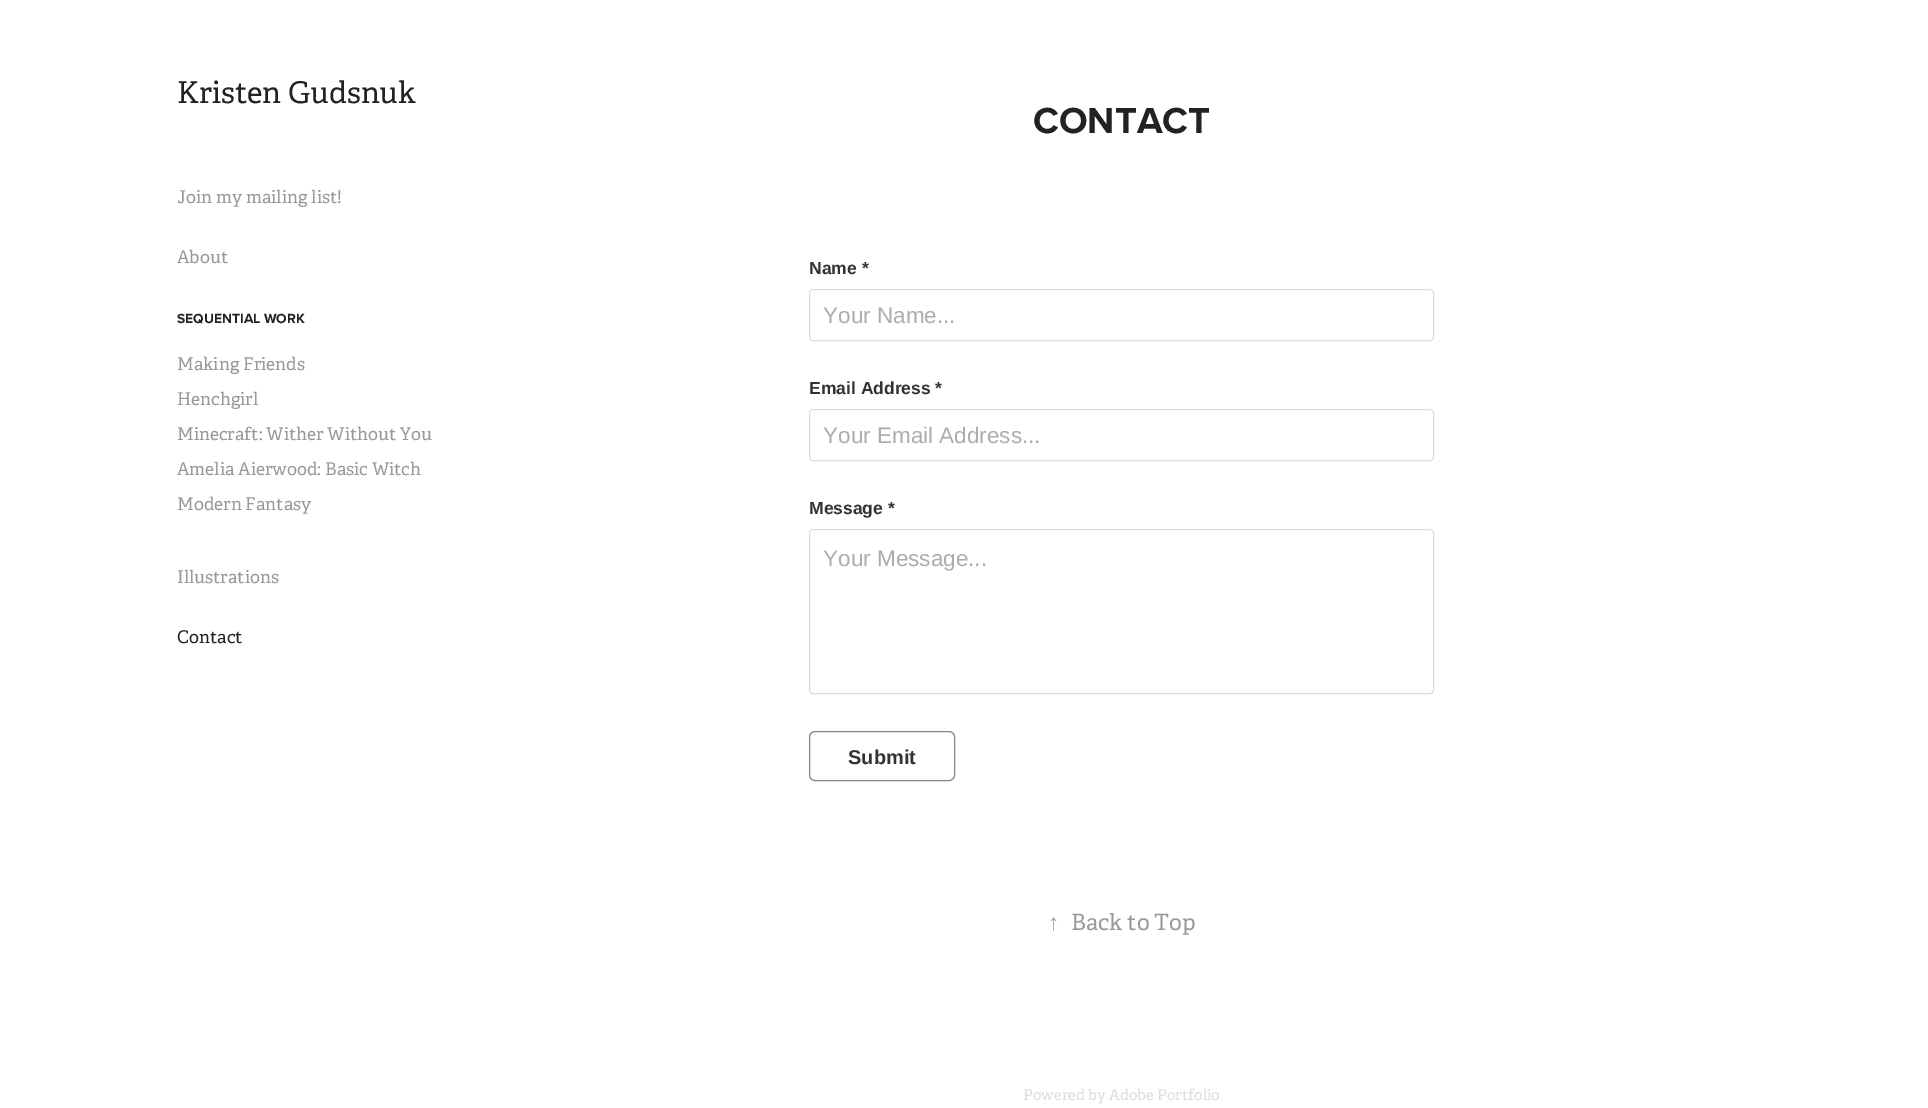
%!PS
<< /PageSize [1928 1108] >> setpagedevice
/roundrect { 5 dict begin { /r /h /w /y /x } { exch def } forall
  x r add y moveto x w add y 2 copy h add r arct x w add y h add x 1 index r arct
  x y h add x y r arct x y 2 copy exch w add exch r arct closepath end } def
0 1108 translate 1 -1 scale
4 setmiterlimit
1 setgray
0 0 1928 1108 rectfill
/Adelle-Regular [30 0 0 -30 0 0] selectfont
0.133 setgray
177 103 moveto (Kristen Gudsnuk) show
/Adelle-Regular [17.5 0 0 -17.5 0 0] selectfont
0.6 setgray
177 203 moveto (Join my mailing list!) show
177 263 moveto (About) show
/ProximaNova-Bold [13.75 0 0 -13.75 0 0] selectfont
0.133 setgray
177 323 moveto (SEQUENTIAL WORK) show
/Adelle-Regular [17.5 0 0 -17.5 0 0] selectfont
0.6 setgray
177 370 moveto (Making Friends) show
177 405 moveto (Henchgirl) show
177 440 moveto (Minecraft: Wither Without You) show
177 475 moveto (Amelia Aierwood: Basic Witch) show
177 510 moveto (Modern Fantasy) show
177 583 moveto (Illustrations) show
0.133 setgray
177 643 moveto (Contact) show
/ProximaNova-Bold [37.5 0 0 -37.5 0 0] selectfont
1033 133 moveto (CONTACT) show
/LiberationSans-Bold [17.5 0 0 -17.5 0 0] selectfont
0.2 setgray
809 274 moveto (Name *) show
0.867 setgray
809.5 289.5 624 51 3.5 roundrect stroke
/LiberationSans-Regular [22.5 0 0 -22.5 0 0] selectfont
0.678 setgray
823 323 moveto (Your Name...) show
/LiberationSans-Bold [17.5 0 0 -17.5 0 0] selectfont
0.2 setgray
809 394 moveto (Email Address *) show
0.867 setgray
809.5 409.5 624 51 3.5 roundrect stroke
/LiberationSans-Regular [22.5 0 0 -22.5 0 0] selectfont
0.678 setgray
823 443 moveto (Your Email Address...) show
/LiberationSans-Bold [17.5 0 0 -17.5 0 0] selectfont
0.2 setgray
809 514 moveto (Message *) show
0.867 setgray
809.5 529.5 624 164 3.5 roundrect stroke
/LiberationSans-Regular [22.5 0 0 -22.5 0 0] selectfont
0.678 setgray
823 566 moveto (Your Message...) show
0.522 setgray
809.5 731.5 145 49 5.5 roundrect stroke
/LiberationSans-Bold [20 0 0 -20 0 0] selectfont
0.2 setgray
848 764 moveto (Submit) show
/LiberationSerif-Regular [22.5 0 0 -22.5 0 0] selectfont
0.6 setgray
1048 930 moveto (↑) show
/Adelle-Regular [22.5 0 0 -22.5 0 0] selectfont
1071 930 moveto (Back to Top) show
/Adelle-Regular [15 0 0 -15 0 0] selectfont
0.867 setgray
1023 1100 moveto (Powered by Adobe Portfolio) show
showpage
